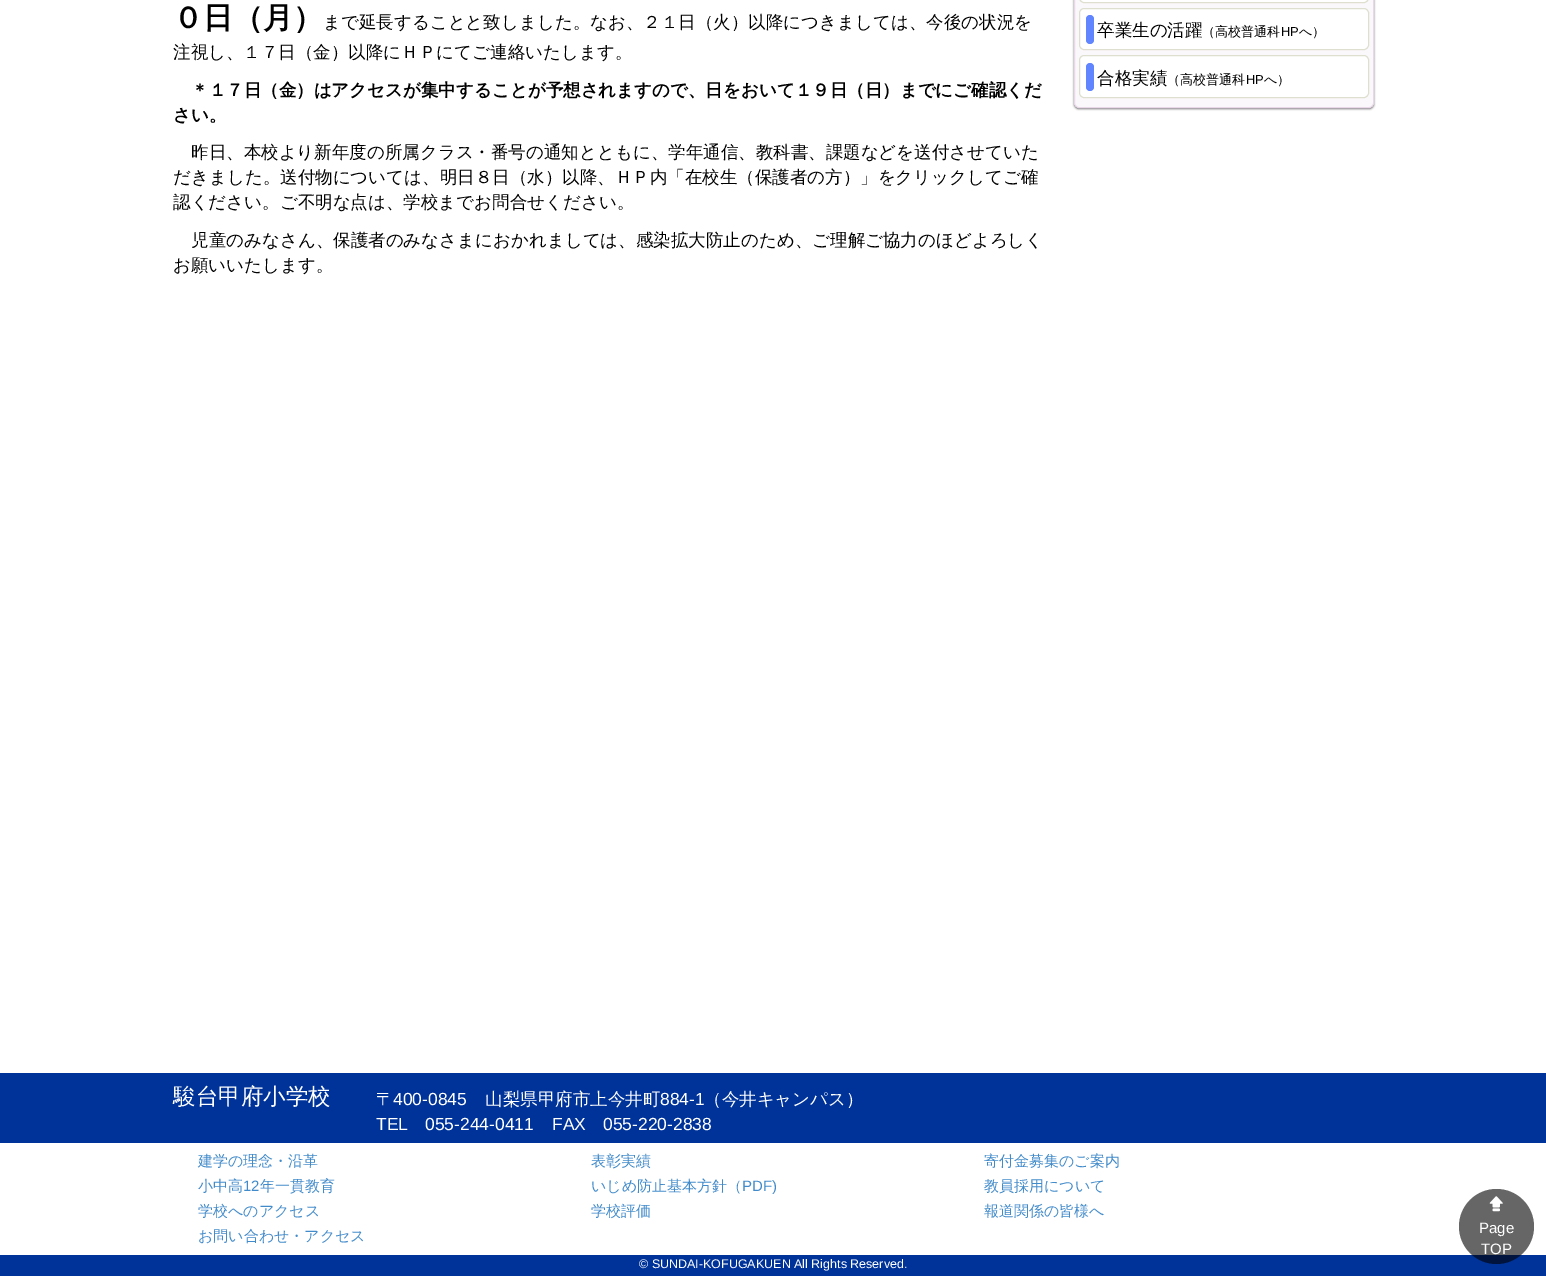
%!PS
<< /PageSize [1546 1276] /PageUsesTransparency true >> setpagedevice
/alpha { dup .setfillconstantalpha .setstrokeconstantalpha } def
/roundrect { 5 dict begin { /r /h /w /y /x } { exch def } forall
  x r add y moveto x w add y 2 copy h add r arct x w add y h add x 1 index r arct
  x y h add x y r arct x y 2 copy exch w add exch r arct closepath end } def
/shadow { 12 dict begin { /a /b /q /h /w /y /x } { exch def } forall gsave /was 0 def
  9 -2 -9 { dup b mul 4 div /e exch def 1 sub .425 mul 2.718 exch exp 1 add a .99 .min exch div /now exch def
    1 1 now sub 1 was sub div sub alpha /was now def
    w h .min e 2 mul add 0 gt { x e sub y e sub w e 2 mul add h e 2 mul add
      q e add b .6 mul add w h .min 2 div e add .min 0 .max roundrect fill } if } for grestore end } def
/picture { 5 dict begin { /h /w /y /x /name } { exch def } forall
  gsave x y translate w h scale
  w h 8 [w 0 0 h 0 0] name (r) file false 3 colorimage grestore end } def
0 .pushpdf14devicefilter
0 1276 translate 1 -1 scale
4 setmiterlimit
1 setgray
0 0 1546 1276 rectfill
/WenQuanYiZenHei-Bold [30 0 0 -30 0 0] selectfont
0 setgray
173 28 moveto (０日（月）) show
/WenQuanYiZenHei-Medium [17.5 0 0 -17.5 0 0] selectfont
323 28 moveto (まで延長することと致しました。なお、２１日（火）以降につきましては、今後の状況を) show
173 58 moveto (注視し、１７日（金）以降にＨＰにてご連絡いたします。) show
/WenQuanYiZenHei-Bold [17.5 0 0 -17.5 0 0] selectfont
191 96 moveto (＊１７日（金）はアクセスが集中することが予想されますので、日をおいて１９日（日）までにご確認くだ) show
173 121 moveto (さい。) show
/WenQuanYiZenHei-Medium [17.5 0 0 -17.5 0 0] selectfont
191 158 moveto (昨日、本校より新年度の所属クラス・番号の通知とともに、学年通信、教科書、課題などを送付させていた) show
173 183 moveto (だきました。送付物については、明日８日（水）以降、ＨＰ内「在校生（保護者の方）」をクリックしてご確) show
173 208 moveto (認ください。ご不明な点は、学校までお問合せください。) show
191 246 moveto (児童のみなさん、保護者のみなさまにおかれましては、感染拡大防止のため、ご理解ご協力のほどよろしく) show
173 271 moveto (お願いいたします。) show
1074 -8 300 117 5 1 0.6 shadow
0.984 0.973 0.984 setrgbcolor
1074.5 -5.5 299 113 4.5 roundrect gsave fill grestore
0.91 0.847 0.91 setrgbcolor
stroke
1 setgray
1079.5 -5.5 289 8 4.5 roundrect gsave fill grestore
0.875 0.875 0.816 setrgbcolor
stroke
1 setgray
1079.5 8.5 289 41 4.5 roundrect gsave fill grestore
0.875 0.875 0.816 setrgbcolor
stroke
0.38 0.522 1 setrgbcolor
1086 15 8 29 4 roundrect fill
0 setgray
1097 36 moveto (卒業生の活躍) show
/WenQuanYiZenHei-Medium [13 0 0 -13 0 0] selectfont
1202 36 moveto (（高校普通科) show
/LiberationSans-Regular [13 0 0 -13 0 0] selectfont
1281 36 moveto (HP) show
/WenQuanYiZenHei-Medium [13 0 0 -13 0 0] selectfont
1299 36 moveto (へ）) show
1 setgray
1079.5 55.5 289 42 4.5 roundrect gsave fill grestore
0.875 0.875 0.816 setrgbcolor
stroke
0.38 0.522 1 setrgbcolor
1086 63 8 28 4 roundrect fill
/WenQuanYiZenHei-Medium [17.5 0 0 -17.5 0 0] selectfont
0 setgray
1097 84 moveto (合格実績) show
/WenQuanYiZenHei-Medium [13 0 0 -13 0 0] selectfont
1167 84 moveto (（高校普通科) show
/LiberationSans-Regular [13 0 0 -13 0 0] selectfont
1246 84 moveto (HP) show
/WenQuanYiZenHei-Medium [13 0 0 -13 0 0] selectfont
1264 84 moveto (へ）) show
0 0.2 0.6 setrgbcolor
0 1255 1546 21 rectfill
0.6 alpha
0 setgray
newpath 1496.5 1226.5 37.5 0 360 arc closepath fill
1 alpha
(img1.rgb) 1489 1196 14 16 picture
/LiberationSans-Regular [15 0 0 -15 0 0] selectfont
1 setgray
1479 1233 moveto (Page) show
1481 1254 moveto (TOP) show
0 0.2 0.6 setrgbcolor
0 1073 1546 70 rectfill
/WenQuanYiZenHei-Medium [22.5 0 0 -22.5 0 0] selectfont
1 setgray
173 1104 moveto (駿台甲府小学校) show
/WenQuanYiZenHei-Medium [17.5 0 0 -17.5 0 0] selectfont
376 1105 moveto (〒) show
/LiberationSans-Regular [17.5 0 0 -17.5 0 0] selectfont
393 1105 moveto (400-0845) show
/WenQuanYiZenHei-Medium [17.5 0 0 -17.5 0 0] selectfont
485 1105 moveto (山梨県甲府市上今井町) show
/LiberationSans-Regular [17.5 0 0 -17.5 0 0] selectfont
660 1105 moveto (884-1) show
/WenQuanYiZenHei-Medium [17.5 0 0 -17.5 0 0] selectfont
704 1105 moveto (（今井キャンパス）) show
/LiberationSans-Regular [17.5 0 0 -17.5 0 0] selectfont
376 1130 moveto (TEL) show
425 1130 moveto (055-244-0411) show
552 1130 moveto (FAX) show
603 1130 moveto (055-220-2838) show
/WenQuanYiZenHei-Medium [15 0 0 -15 0 0] selectfont
0.259 0.545 0.792 setrgbcolor
198 1166 moveto (建学の理念・沿革) show
591 1166 moveto (表彰実績) show
984 1166 moveto (寄付金募集のご案内) show
198 1191 moveto (小中高) show
/LiberationSans-Regular [15 0 0 -15 0 0] selectfont
243 1191 moveto (12) show
/WenQuanYiZenHei-Medium [15 0 0 -15 0 0] selectfont
260 1191 moveto (年一貫教育) show
591 1191 moveto (いじめ防止基本方針（) show
/LiberationSans-Regular [15 0 0 -15 0 0] selectfont
742 1191 moveto (PDF\)) show
/WenQuanYiZenHei-Medium [15 0 0 -15 0 0] selectfont
984 1191 moveto (教員採用について) show
198 1216 moveto (学校へのアクセス) show
591 1216 moveto (学校評価) show
984 1216 moveto (報道関係の皆様へ) show
198 1241 moveto (お問い合わせ・アクセス) show
/LiberationSans-Regular [12.5 0 0 -12.5 0 0] selectfont
1 setgray
639 1268 moveto (© SUNDAI-KOFUGAKUEN All Rights Reserved.) show
.poppdf14devicefilter showpage
